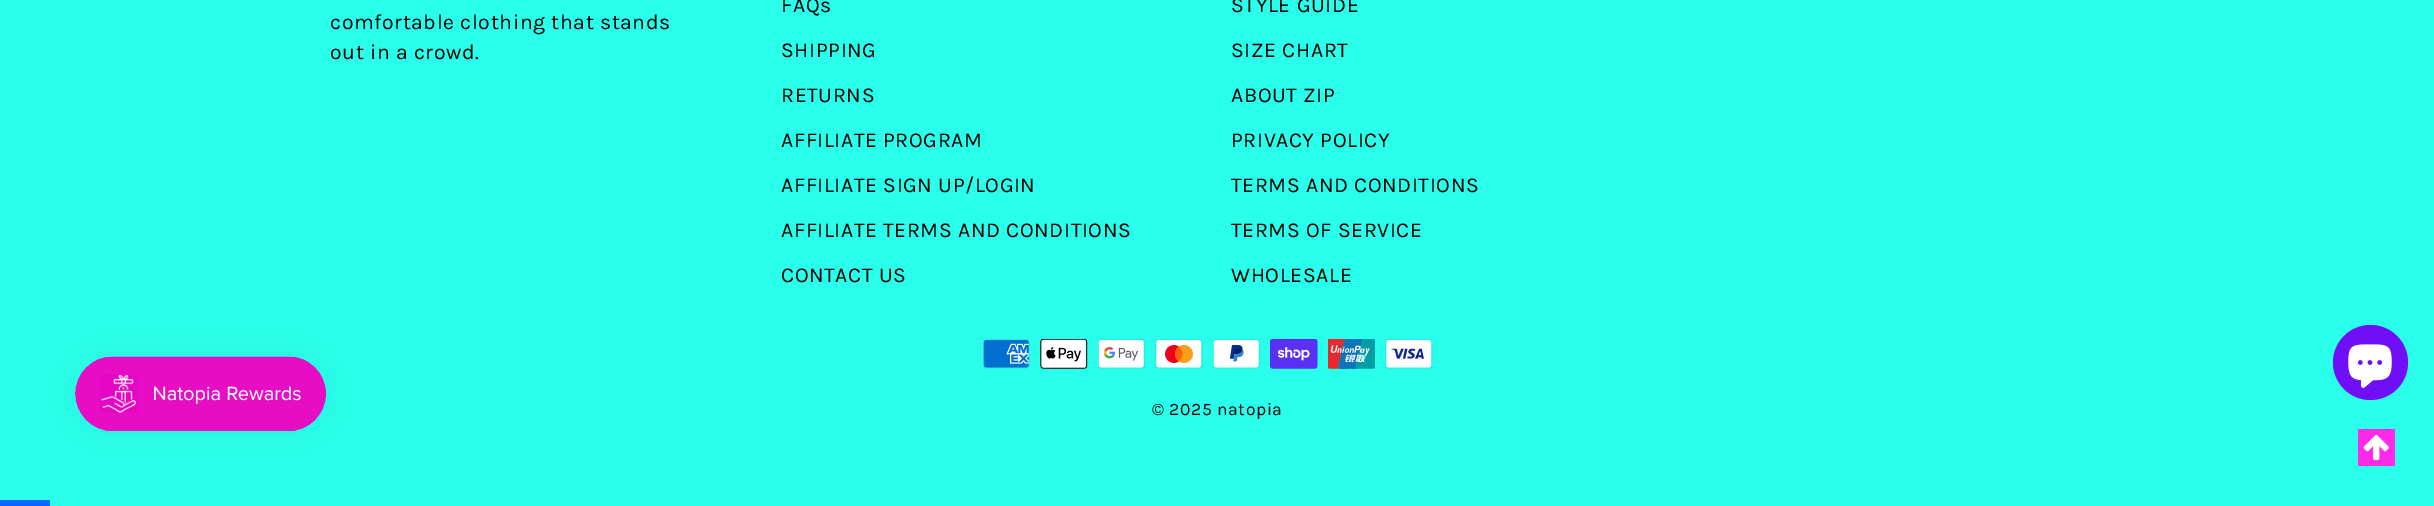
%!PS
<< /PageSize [2434 506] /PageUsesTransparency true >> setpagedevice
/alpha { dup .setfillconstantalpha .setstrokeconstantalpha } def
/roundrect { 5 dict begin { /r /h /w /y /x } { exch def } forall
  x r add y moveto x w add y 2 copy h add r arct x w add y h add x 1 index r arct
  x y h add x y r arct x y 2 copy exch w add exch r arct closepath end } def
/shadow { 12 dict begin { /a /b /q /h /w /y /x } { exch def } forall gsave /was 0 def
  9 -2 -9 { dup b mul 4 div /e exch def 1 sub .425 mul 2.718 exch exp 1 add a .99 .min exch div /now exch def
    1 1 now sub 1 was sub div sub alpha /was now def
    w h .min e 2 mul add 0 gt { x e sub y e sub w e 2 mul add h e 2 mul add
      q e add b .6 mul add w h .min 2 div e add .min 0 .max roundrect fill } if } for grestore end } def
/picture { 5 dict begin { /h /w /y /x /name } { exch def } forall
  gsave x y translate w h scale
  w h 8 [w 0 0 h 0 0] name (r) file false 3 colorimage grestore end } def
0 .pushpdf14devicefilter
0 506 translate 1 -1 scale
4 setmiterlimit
0.161 1 0.918 setrgbcolor
0 0 2434 506 rectfill
0 setgray
75 356 251 75 37.5 15.5 0.05 shadow
(img1.rgb) 75 356 251 75 picture
/Karla-Regular [21.25 0 0 -21.25 0 0] selectfont
330 29 moveto 0.6 0 (comfortable clothing that stands) ashow
330 59 moveto 0.6 0 (out in a crowd.) ashow
781 12 moveto 0.6 0 (FAQs) ashow
781 57 moveto 0.6 0 (SHIPPING) ashow
781 102 moveto 0.6 0 (RETURNS) ashow
781 147 moveto 0.6 0 (AFFILIATE PROGRAM) ashow
781 192 moveto 0.6 0 (AFFILIATE SIGN UP/LOGIN) ashow
781 237 moveto 0.6 0 (AFFILIATE TERMS AND CONDITIONS) ashow
781 282 moveto 0.6 0 (CONTACT US) ashow
1231 12 moveto 0.6 0 (STYLE GUIDE) ashow
1231 57 moveto 0.6 0 (SIZE CHART) ashow
1231 102 moveto 0.6 0 (ABOUT ZIP) ashow
1231 147 moveto 0.6 0 (PRIVACY POLICY) ashow
1231 192 moveto 0.6 0 (TERMS AND CONDITIONS) ashow
1231 237 moveto 0.6 0 (TERMS OF SERVICE) ashow
1231 282 moveto 0.6 0 (WHOLESALE) ashow
(img2.rgb) 983 339 47 30 picture
(img3.rgb) 1040 339 48 30 picture
(img4.rgb) 1098 339 47 30 picture
(img5.rgb) 1155 339 48 30 picture
(img6.rgb) 1213 339 47 30 picture
(img7.rgb) 1270 339 48 30 picture
(img8.rgb) 1328 339 47 30 picture
(img9.rgb) 1385 339 48 30 picture
/Karla-Regular [17.5 0 0 -17.5 0 0] selectfont
1152 415 moveto 0.6 0 (© 2025 natopia) ashow
0.439 0.055 0.961 setrgbcolor
newpath 2370.5 362.5 37.5 0 360 arc closepath fill
(img10.rgb) 2348 344 44 44 picture
(img11.rgb) 2358 429 37 37 picture
0.031 0.4 1 setrgbcolor
0 500 50 6 rectfill
.poppdf14devicefilter showpage
